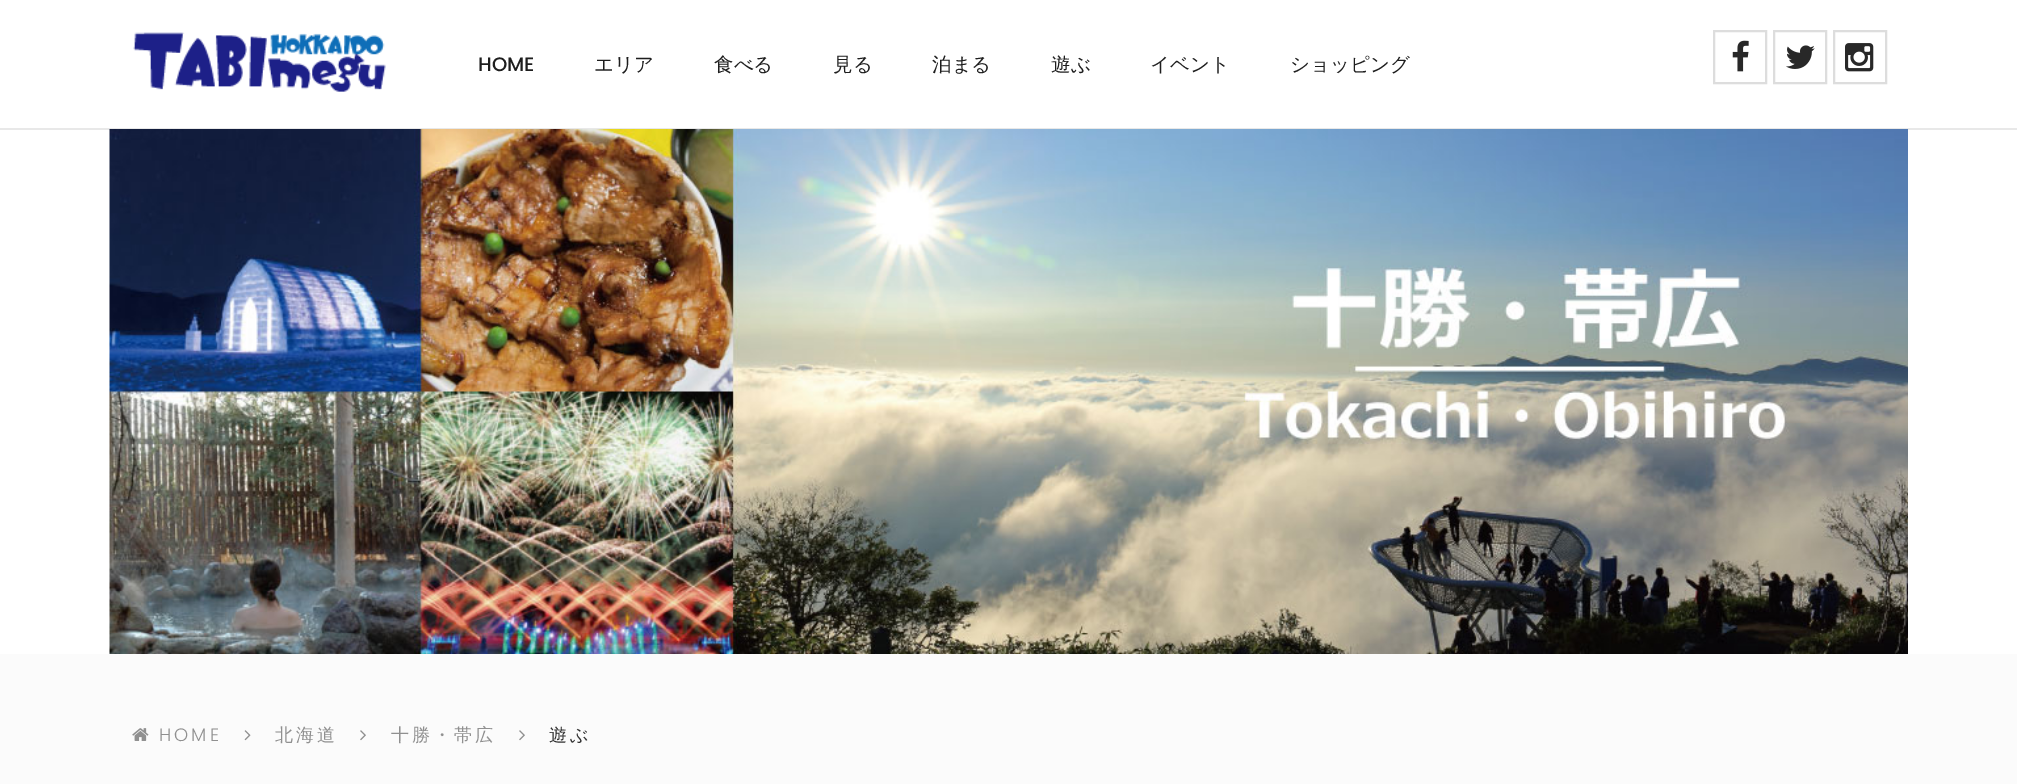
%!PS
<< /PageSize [2017 784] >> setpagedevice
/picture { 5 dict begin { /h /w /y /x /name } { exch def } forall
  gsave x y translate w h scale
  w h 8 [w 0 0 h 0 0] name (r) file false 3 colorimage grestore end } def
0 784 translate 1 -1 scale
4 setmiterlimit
1 setgray
0 0 2017 784 rectfill
0.91 setgray
0 128 2017 2 rectfill
(img1.rgb) 133 32 253 60 picture
/Poppins-Medium [19.5 0 0 -19.5 0 0] selectfont
0.118 setgray
478 71 moveto (HOME) show
/WenQuanYiZenHei-Medium [19.5 0 0 -19.5 0 0] selectfont
594 71 moveto (エリア) show
714 71 moveto (食べる) show
833 71 moveto (見る) show
932 71 moveto (泊まる) show
1051 71 moveto (遊ぶ) show
1150 71 moveto (イベント) show
1290 71 moveto (ショッピング) show
0.867 setgray
2 setlinewidth
1714 31 52 52 rectstroke
(img2.rgb) 1732 40 17 32 picture
1774 31 52 52 rectstroke
(img3.rgb) 1786 45 29 24 picture
1834 31 52 52 rectstroke
(img4.rgb) 1845 43 29 29 picture
(img5.rgb) 109 129 1799 525 picture
0.984 setgray
0 654 2017 130 rectfill
(img6.rgb) 132 728 17 13 picture
/Poppins-Light [18 0 0 -18 0 0] selectfont
0.565 setgray
159 741 moveto 3 0 (HOME) ashow
(img7.rgb) 244 730 7 11 picture
/WenQuanYiZenHei-Medium [18 0 0 -18 0 0] selectfont
275 741 moveto 3 0 (北海道) ashow
(img8.rgb) 360 730 6 11 picture
391 741 moveto 3 0 (十勝・帯広) ashow
(img8.rgb) 519 730 6 11 picture
0.188 setgray
549 741 moveto 3 0 (遊ぶ) ashow
showpage
